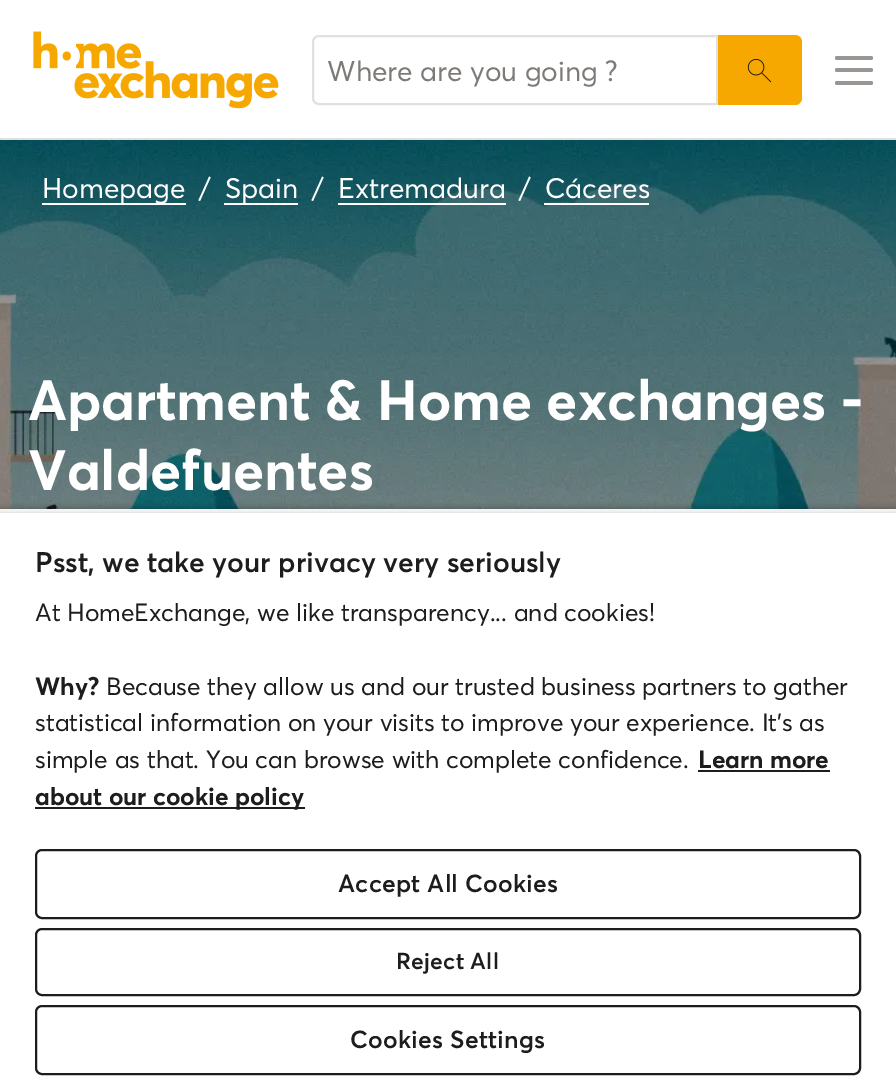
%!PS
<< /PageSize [896 1082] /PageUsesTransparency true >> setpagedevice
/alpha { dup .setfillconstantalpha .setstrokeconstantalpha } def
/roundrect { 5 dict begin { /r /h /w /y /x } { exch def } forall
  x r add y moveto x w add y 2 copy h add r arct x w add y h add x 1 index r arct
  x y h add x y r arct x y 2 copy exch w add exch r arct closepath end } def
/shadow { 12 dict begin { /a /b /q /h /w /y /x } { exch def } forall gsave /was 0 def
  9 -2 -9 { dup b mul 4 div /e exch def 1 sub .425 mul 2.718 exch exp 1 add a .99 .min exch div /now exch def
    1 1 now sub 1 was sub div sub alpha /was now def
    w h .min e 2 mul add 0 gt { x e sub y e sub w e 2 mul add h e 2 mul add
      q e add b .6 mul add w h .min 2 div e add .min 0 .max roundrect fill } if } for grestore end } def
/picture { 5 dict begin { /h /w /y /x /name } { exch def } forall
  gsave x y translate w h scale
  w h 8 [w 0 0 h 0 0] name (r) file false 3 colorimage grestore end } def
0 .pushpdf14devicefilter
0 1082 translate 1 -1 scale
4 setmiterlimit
1 setgray
0 0 896 1082 rectfill
0.878 setgray
0 138 896 2 rectfill
(img1.rgb) 33 31 246 78 picture
2 setlinewidth
newpath 319 36 moveto 717 36 lineto 717 104 lineto 319 104 lineto 315.5 104 313 101.5 313 98 curveto 313 42 lineto 313 38.5 315.5 36 319 36 curveto closepath stroke
/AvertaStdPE-Regular [28 0 0 -28 0 0] selectfont
0.494 0.482 0.467 setrgbcolor
327 81 moveto (Where are you going ?) show
0.969 0.659 0 setrgbcolor
newpath 718 35 moveto 795 35 lineto 799 35 802 38 802 42 curveto 802 98 lineto 802 102 799 105 795 105 curveto 718 105 lineto closepath fill
(img2.rgb) 747 58 25 25 picture
0.596 0.584 0.573 setrgbcolor
835 56 38 4 2 roundrect fill
835 68 38 4 2 roundrect fill
835 81 38 4 2 roundrect fill
(img3.rgb) 0 140 896 369 picture
1 setgray
42 203 144 2 rectfill
42 198 moveto (Homepage) show
199 198 moveto (/) show
224 203 74 2 rectfill
225 198 moveto (Spain) show
312 198 moveto (/) show
338 198 moveto (Extremadura) show
338 203 168 2 rectfill
519 198 moveto (/) show
545 198 moveto (Cáceres) show
544 203 105 2 rectfill
/AvertaStdPE-Bold [56 0 0 -56 0 0] selectfont
28 420 moveto (Apartment & Home exchanges -) show
28 490 moveto (Valdefuentes) show
0 setgray
0 509 896 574 0 3.5 0.35 shadow
1 setgray
0 509 896 573 rectfill
gsave
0 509 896 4 rectclip
0 setgray
0 513 896 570 0 3.5 0.2 shadow
grestore
/AvertaStdPE-SemiBold [28 0 0 -28 0 0] selectfont
0.118 0.114 0.114 setrgbcolor
35 572 moveto (Psst, we take your privacy very seriously) show
/AvertaStdPE-Regular [24.5 0 0 -24.5 0 0] selectfont
35 621 moveto (At HomeExchange, we like transparency... and cookies!) show
/AvertaStdPE-Bold [24.5 0 0 -24.5 0 0] selectfont
35 695 moveto (Why?) show
/AvertaStdPE-Regular [24.5 0 0 -24.5 0 0] selectfont
106 695 moveto (Because they allow us and our trusted business partners to gather) show
35 731 moveto (statistical information on your visits to improve your experience. It's as) show
35 768 moveto (simple as that. You can browse with complete confidence.) show
/AvertaStdPE-Bold [24.5 0 0 -24.5 0 0] selectfont
698 768 moveto (Learn more) show
698 770 132 2 rectfill
35 807 270 2 rectfill
35 805 moveto (about our cookie policy) show
36 850 824 68 6 roundrect stroke
/AvertaStdPE-SemiBold [24.5 0 0 -24.5 0 0] selectfont
338 892 moveto 0.25 0 (Accept All Cookies) ashow
36 929 824 66 6 roundrect stroke
/AvertaStdPE-SemiBold [22.75 0 0 -22.75 0 0] selectfont
396 969 moveto 0.25 0 (Reject All) ashow
36 1006 824 68 6 roundrect stroke
/AvertaStdPE-SemiBold [24.5 0 0 -24.5 0 0] selectfont
350 1048 moveto 0.25 0 (Cookies Settings) ashow
.poppdf14devicefilter showpage
